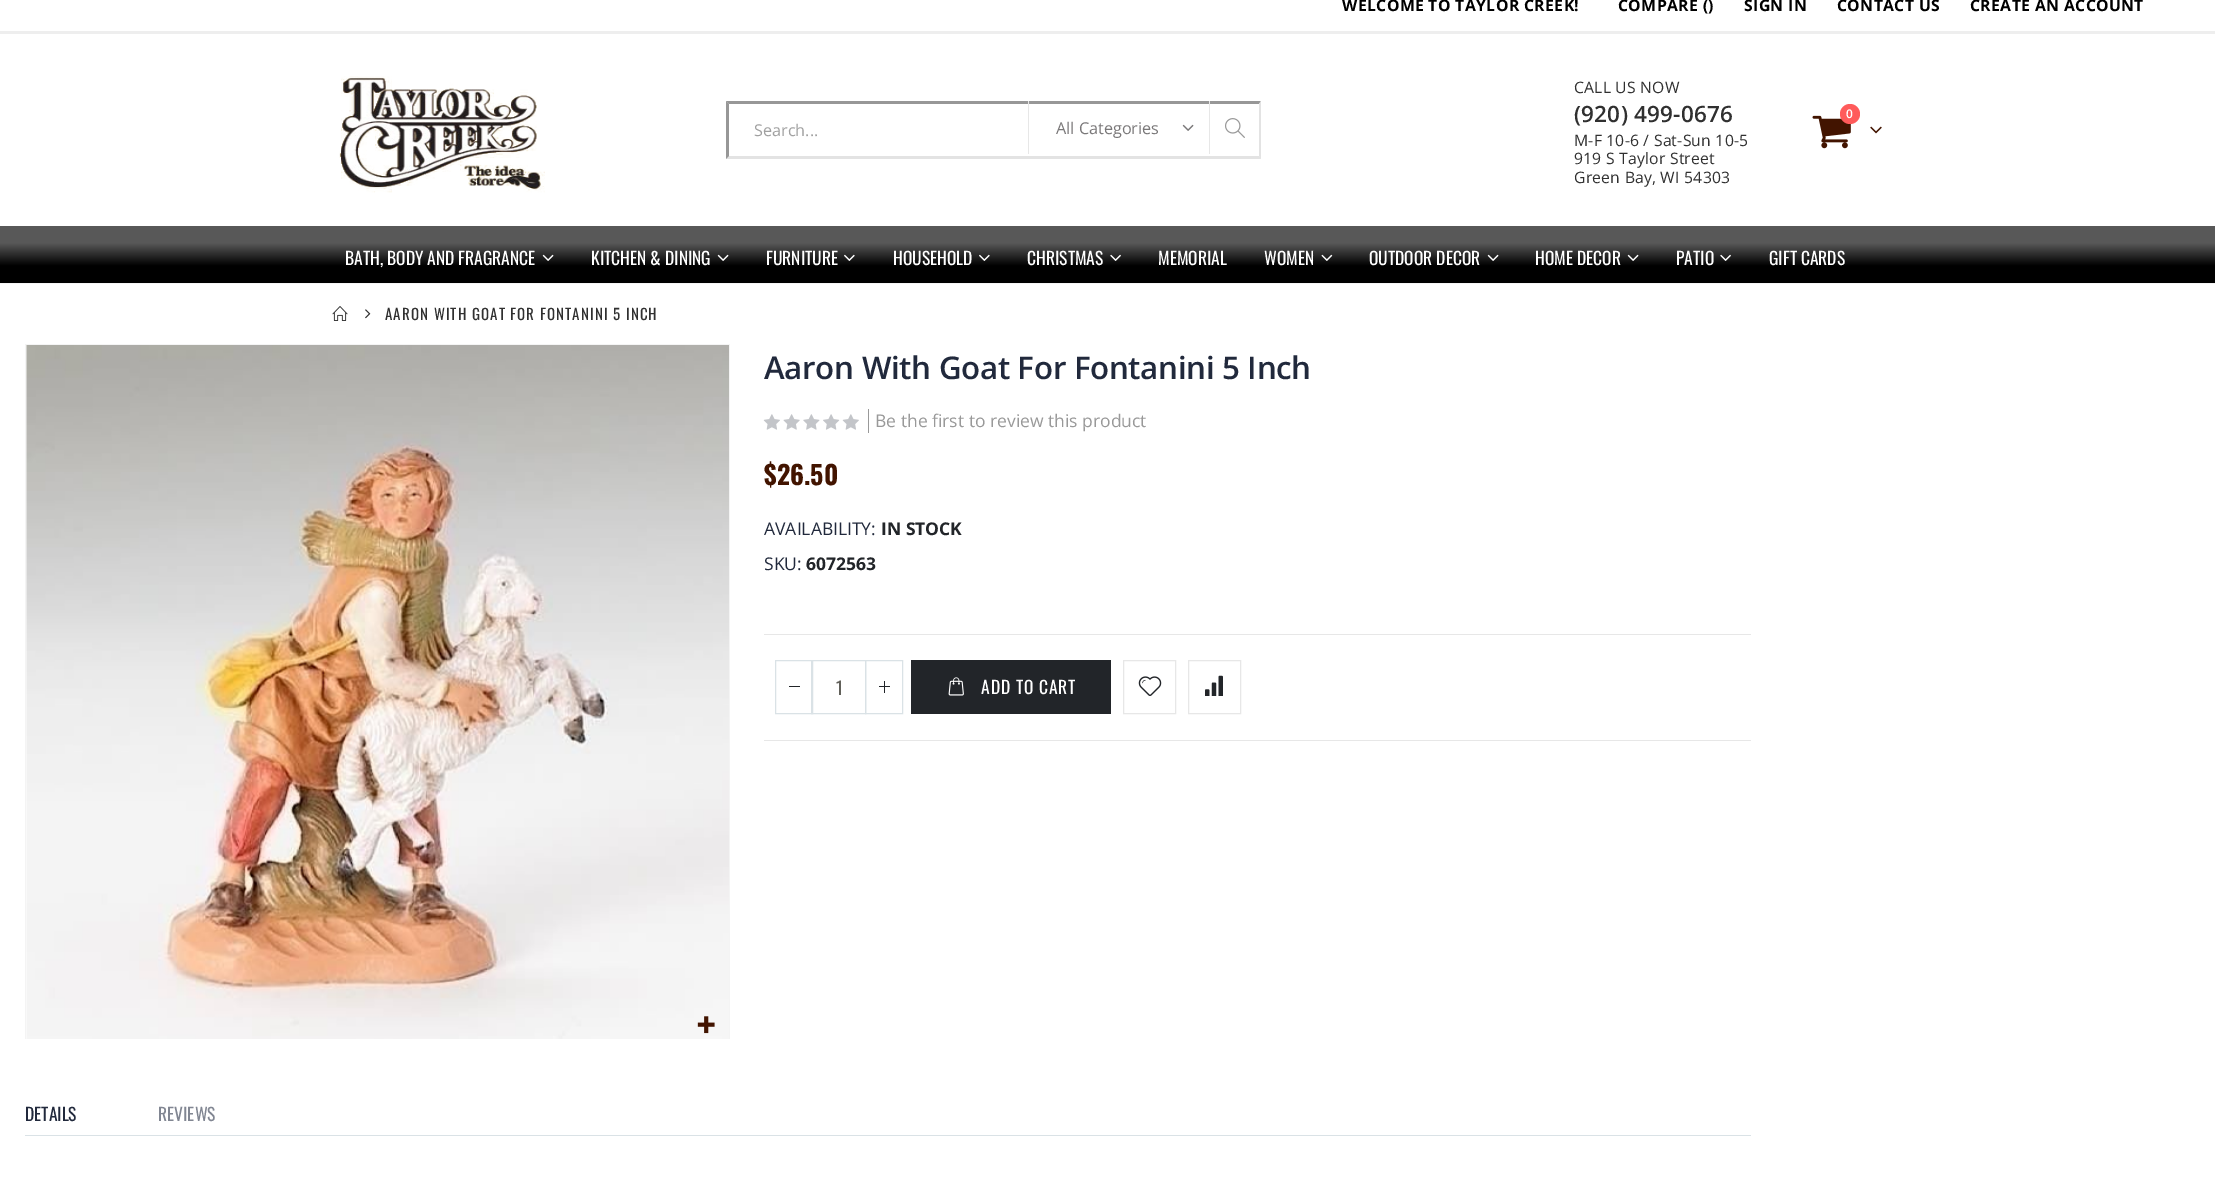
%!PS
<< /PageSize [2215 1185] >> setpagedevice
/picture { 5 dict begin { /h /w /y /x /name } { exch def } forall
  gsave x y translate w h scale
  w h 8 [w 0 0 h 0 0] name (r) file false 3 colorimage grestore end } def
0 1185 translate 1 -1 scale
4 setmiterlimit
1 setgray
0 0 2215 1185 rectfill
0.957 setgray
0 283 2215 1 rectfill
0.933 setgray
0 31 2215 3 rectfill
/OpenSans-Bold [15.75 0 0 -15.75 0 0] selectfont
0 setgray
1342 11 moveto 0.4 0 (WELCOME TO TAYLOR CREEK!) ashow
1618 11 moveto 0.4 0 (COMPARE \(\)) ashow
1744 11 moveto 0.4 0 (SIGN IN) ashow
1837 11 moveto 0.4 0 (CONTACT US) ashow
1970 11 moveto 0.4 0 (CREATE AN ACCOUNT) ashow
(img1.rgb) 339 76 206 117 picture
0.592 setgray
newpath 726 101 moveto 1261 101 lineto 1259 104 lineto 729 104 lineto closepath fill
0.89 setgray
newpath 1261 101 moveto 1261 159 lineto 1259 156 lineto 1259 104 lineto closepath fill
newpath 1261 159 moveto 726 159 lineto 729 156 lineto 1259 156 lineto closepath fill
0.592 setgray
newpath 726 159 moveto 726 101 lineto 729 104 lineto 729 156 lineto closepath fill
/OpenSans-Regular [16.25 0 0 -16.25 0 0] selectfont
0.627 setgray
754 136 moveto (Search...) show
0.906 setgray
1209 101 1 53 rectfill
1028 101 1 53 rectfill
0.478 0.471 0.475 setrgbcolor
1056 134 moveto (All Categories) show
(img2.rgb) 1182 124 12 7 picture
(img3.rgb) 1225 118 20 20 picture
/OpenSans-Regular [15.75 0 0 -15.75 0 0] selectfont
0.188 setgray
1574 93 moveto 0.2 0 (CALL US NOW) ashow
/OpenSans-SemiBold [22.5 0 0 -22.5 0 0] selectfont
1574 122 moveto 0.2 0 (\(920\) 499-0676) ashow
/OpenSans-Regular [15.75 0 0 -15.75 0 0] selectfont
1574 146 moveto 0.2 0 (M-F 10-6 / Sat-Sun 10-5) ashow
1574 164 moveto 0.2 0 (919 S Taylor Street) ashow
1574 183 moveto 0.2 0 (Green Bay, WI 54303) ashow
(img4.rgb) 1812 115 39 34 picture
1 0.357 0.357 setrgbcolor
newpath 1850 114 10 0 360 arc closepath fill
/OpenSans-SemiBold [12 0 0 -12 0 0] selectfont
1 setgray
1846 118 moveto (0) show
(img5.rgb) 1870 126 12 8 picture
gsave newpath 0 226 moveto 2215 226 lineto 2215 283 lineto 0 283 lineto closepath clip newpath
<< /ShadingType 2 /ColorSpace /DeviceRGB /Coords [1108 283 1108 226] /Extend [true true] /Function << /FunctionType 3 /Domain [0 1] /Functions [<< /FunctionType 2 /Domain [0 1] /C0 [0 0 0] /C1 [0 0 0] /N 1 >> << /FunctionType 2 /Domain [0 1] /C0 [0 0 0] /C1 [0.345 0.345 0.345] /N 1 >> << /FunctionType 2 /Domain [0 1] /C0 [0.345 0.345 0.345] /C1 [0.345 0.345 0.345] /N 1 >>] /Bounds [0.3 0.7] /Encode [0 1 0 1 0 1] >> >> shfill grestore
/Oswald-Regular [17.5 0 0 -17.5 0 0] selectfont
345 265 moveto (BATH, BODY AND FRAGRANCE) show
(img6.rgb) 542 254 12 7 picture
591 265 moveto (KITCHEN & DINING) show
(img6.rgb) 717 254 12 7 picture
766 265 moveto (FURNITURE) show
(img7.rgb) 844 254 11 7 picture
893 265 moveto (HOUSEHOLD) show
(img7.rgb) 979 254 11 7 picture
1027 265 moveto (CHRISTMAS) show
(img8.rgb) 1110 254 11 7 picture
1158 265 moveto (MEMORIAL) show
1264 265 moveto (WOMEN) show
(img9.rgb) 1321 254 12 7 picture
1369 265 moveto (OUTDOOR DECOR) show
(img6.rgb) 1487 254 12 7 picture
1535 265 moveto (HOME DECOR) show
(img6.rgb) 1627 254 12 7 picture
1676 265 moveto (PATIO) show
(img8.rgb) 1720 254 11 7 picture
1769 265 moveto (GIFT CARDS) show
(img10.rgb) 332 306 16 15 picture
(img11.rgb) 365 309 6 10 picture
/Oswald-Regular [15 0 0 -15 0 0] selectfont
0.188 setgray
385 320 moveto 1.1 0 (AARON WITH GOAT FOR FONTANINI 5 INCH) ashow
gsave
25 344 705 695 rectclip
0.957 setgray
25.5 344.5 704 704 rectstroke
grestore
(img12.rgb) 26 345 703 694 picture
(img13.rgb) 697 1016 18 18 picture
/OpenSans-SemiBold [31.25 0 0 -31.25 0 0] selectfont
0.129 0.161 0.235 setrgbcolor
764 379 moveto -0.3 0 (Aaron With Goat For Fontanini 5 Inch) ashow
(img14.rgb) 763 414 96 16 picture
/OpenSans-Regular [17.5 0 0 -17.5 0 0] selectfont
0.6 setgray
875 427 moveto (Be the first to review this product) show
868 409 1 24 rectfill
/Oswald-Bold [26 0 0 -26 0 0] selectfont
0.259 0.078 0 setrgbcolor
764 485 moveto ($26.50) show
/OpenSans-Regular [17.5 0 0 -17.5 0 0] selectfont
0.129 0.161 0.235 setrgbcolor
764 535 moveto (AVAILABILITY:) show
/OpenSans-Bold [17.5 0 0 -17.5 0 0] selectfont
0.133 0.145 0.161 setrgbcolor
881 535 moveto (IN STOCK) show
/OpenSans-Regular [17.5 0 0 -17.5 0 0] selectfont
0.129 0.161 0.235 setrgbcolor
764 570 moveto (SKU:) show
/OpenSans-Bold [17.5 0 0 -17.5 0 0] selectfont
0.133 0.145 0.161 setrgbcolor
806 570 moveto (6072563) show
0.906 setgray
764 634 987 1 rectfill
764 740 987 1 rectfill
0.855 0.886 0.902 setrgbcolor
811.5 660.5 54 53 rectstroke
775.5 660.5 37 53 rectstroke
0.133 0.145 0.161 setrgbcolor
789 686 11 1 rectfill
0.855 0.886 0.902 setrgbcolor
865.5 660.5 37 53 rectstroke
0.133 0.145 0.161 setrgbcolor
879 686 11 1 rectfill
884 681 1 12 rectfill
/Oswald-Regular [18 0 0 -18 0 0] selectfont
0.38 0.376 0.353 setrgbcolor
836 695 moveto (1) show
0.133 0.145 0.161 setrgbcolor
911 660 200 54 rectfill
(img15.rgb) 948 677 16 19 picture
/Oswald-Regular [17.5 0 0 -17.5 0 0] selectfont
1 setgray
981 694 moveto 0.9 0 (ADD TO CART) ashow
0.906 setgray
1123.5 660.5 52 53 rectstroke
(img16.rgb) 1138 676 24 20 picture
1188.5 660.5 52 53 rectstroke
(img17.rgb) 1205 675 18 21 picture
0.129 0.161 0.235 setrgbcolor
25 1121 moveto (DETAILS) show
0.506 0.525 0.573 setrgbcolor
158 1121 moveto (REVIEWS) show
0.855 0.886 0.902 setrgbcolor
25 1135 1726 1 rectfill
showpage
